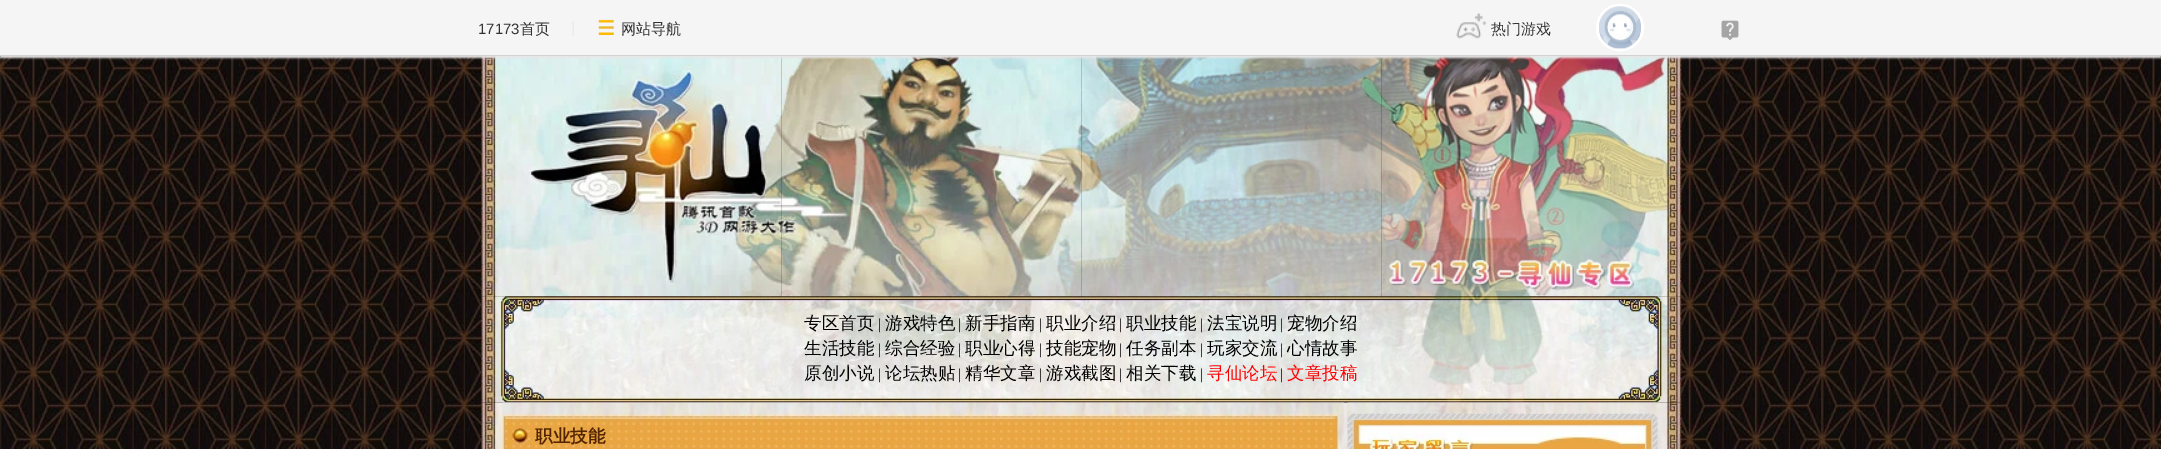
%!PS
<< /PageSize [2161 449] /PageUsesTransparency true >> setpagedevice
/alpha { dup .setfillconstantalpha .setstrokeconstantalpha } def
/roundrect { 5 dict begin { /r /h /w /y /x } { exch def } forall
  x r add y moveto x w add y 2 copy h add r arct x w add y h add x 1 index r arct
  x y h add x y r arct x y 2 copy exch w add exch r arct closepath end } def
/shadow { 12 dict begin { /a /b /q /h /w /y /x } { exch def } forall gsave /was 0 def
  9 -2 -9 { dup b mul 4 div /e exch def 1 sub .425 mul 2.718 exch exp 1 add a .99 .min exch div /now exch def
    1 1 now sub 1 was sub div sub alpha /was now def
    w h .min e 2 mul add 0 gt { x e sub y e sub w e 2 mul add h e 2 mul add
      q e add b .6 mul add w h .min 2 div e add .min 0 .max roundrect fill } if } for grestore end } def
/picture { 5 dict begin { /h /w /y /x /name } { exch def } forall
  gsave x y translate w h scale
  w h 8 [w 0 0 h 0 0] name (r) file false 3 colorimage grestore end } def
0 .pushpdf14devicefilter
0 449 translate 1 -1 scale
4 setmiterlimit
1 setgray
0 0 2161 449 rectfill
(img1.rgb) 0 56 2161 393 picture
(img11.rgb) 481 296 1201 107 picture
(img7.rgb) 481 56 301 241 picture
(img8.rgb) 781 56 301 241 picture
(img9.rgb) 1081 56 301 241 picture
(img10.rgb) 1381 56 301 241 picture
0.91 0.902 0.902 setrgbcolor
0 1 2161 57 0 1 1 shadow
0.961 setgray
0 0 2161 55 rectfill
0.824 setgray
0 55 2161 1 rectfill
/LiberationSans-Regular [15 0 0 -15 0 0] selectfont
0.2 setgray
478 34 moveto (17173) show
/WenQuanYiZenHei-Medium [15 0 0 -15 0 0] selectfont
520 34 moveto (首页) show
(img2.rgb) 572 21 2 15 picture
(img3.rgb) 598 19 16 16 picture
621 34 moveto (网站导航) show
(img4.rgb) 1456 13 31 26 picture
1491 34 moveto (热门游戏) show
1 setgray
3 setlinewidth
1597.5 5.5 45 44 22 roundrect stroke
(img5.rgb) 1599 6 42 44 picture
(img6.rgb) 1721 20 18 21 picture
/WenQuanYiZenHei-Medium [17.5 0 0 -17.5 0 0] selectfont
0 setgray
804 329 moveto (专区首页) show
/LiberationSerif-Regular [15 0 0 -15 0 0] selectfont
878 329 moveto (|) show
/WenQuanYiZenHei-Medium [17.5 0 0 -17.5 0 0] selectfont
885 329 moveto (游戏特色) show
/LiberationSerif-Regular [15 0 0 -15 0 0] selectfont
958 329 moveto (|) show
/WenQuanYiZenHei-Medium [17.5 0 0 -17.5 0 0] selectfont
965 329 moveto (新手指南) show
/LiberationSerif-Regular [15 0 0 -15 0 0] selectfont
1039 329 moveto (|) show
/WenQuanYiZenHei-Medium [17.5 0 0 -17.5 0 0] selectfont
1046 329 moveto (职业介绍) show
/LiberationSerif-Regular [15 0 0 -15 0 0] selectfont
1119 329 moveto (|) show
/WenQuanYiZenHei-Medium [17.5 0 0 -17.5 0 0] selectfont
1126 329 moveto (职业技能) show
/LiberationSerif-Regular [15 0 0 -15 0 0] selectfont
1200 329 moveto (|) show
/WenQuanYiZenHei-Medium [17.5 0 0 -17.5 0 0] selectfont
1207 329 moveto (法宝说明) show
/LiberationSerif-Regular [15 0 0 -15 0 0] selectfont
1280 329 moveto (|) show
/WenQuanYiZenHei-Medium [17.5 0 0 -17.5 0 0] selectfont
1287 329 moveto (宠物介绍) show
804 354 moveto (生活技能) show
/LiberationSerif-Regular [15 0 0 -15 0 0] selectfont
878 354 moveto (|) show
/WenQuanYiZenHei-Medium [17.5 0 0 -17.5 0 0] selectfont
885 354 moveto (综合经验) show
/LiberationSerif-Regular [15 0 0 -15 0 0] selectfont
958 354 moveto (|) show
/WenQuanYiZenHei-Medium [17.5 0 0 -17.5 0 0] selectfont
965 354 moveto (职业心得) show
/LiberationSerif-Regular [15 0 0 -15 0 0] selectfont
1039 354 moveto (|) show
/WenQuanYiZenHei-Medium [17.5 0 0 -17.5 0 0] selectfont
1046 354 moveto (技能宠物) show
/LiberationSerif-Regular [15 0 0 -15 0 0] selectfont
1119 354 moveto (|) show
/WenQuanYiZenHei-Medium [17.5 0 0 -17.5 0 0] selectfont
1126 354 moveto (任务副本) show
/LiberationSerif-Regular [15 0 0 -15 0 0] selectfont
1200 354 moveto (|) show
/WenQuanYiZenHei-Medium [17.5 0 0 -17.5 0 0] selectfont
1207 354 moveto (玩家交流) show
/LiberationSerif-Regular [15 0 0 -15 0 0] selectfont
1280 354 moveto (|) show
/WenQuanYiZenHei-Medium [17.5 0 0 -17.5 0 0] selectfont
1287 354 moveto (心情故事) show
804 379 moveto (原创小说) show
/LiberationSerif-Regular [15 0 0 -15 0 0] selectfont
878 379 moveto (|) show
/WenQuanYiZenHei-Medium [17.5 0 0 -17.5 0 0] selectfont
885 379 moveto (论坛热贴) show
/LiberationSerif-Regular [15 0 0 -15 0 0] selectfont
958 379 moveto (|) show
/WenQuanYiZenHei-Medium [17.5 0 0 -17.5 0 0] selectfont
965 379 moveto (精华文章) show
/LiberationSerif-Regular [15 0 0 -15 0 0] selectfont
1039 379 moveto (|) show
/WenQuanYiZenHei-Medium [17.5 0 0 -17.5 0 0] selectfont
1046 379 moveto (游戏截图) show
/LiberationSerif-Regular [15 0 0 -15 0 0] selectfont
1119 379 moveto (|) show
/WenQuanYiZenHei-Medium [17.5 0 0 -17.5 0 0] selectfont
1126 379 moveto (相关下载) show
/LiberationSerif-Regular [15 0 0 -15 0 0] selectfont
1200 379 moveto (|) show
/WenQuanYiZenHei-Medium [17.5 0 0 -17.5 0 0] selectfont
1 0 0 setrgbcolor
1207 379 moveto (寻仙论坛) show
/LiberationSerif-Regular [15 0 0 -15 0 0] selectfont
0 setgray
1280 379 moveto (|) show
/WenQuanYiZenHei-Medium [17.5 0 0 -17.5 0 0] selectfont
1 0 0 setrgbcolor
1287 379 moveto (文章投稿) show
(img12.rgb) 481 402 1201 47 picture
(img13.rgb) 502 402 842 47 picture
/WenQuanYiZenHei-Bold [17.5 0 0 -17.5 0 0] selectfont
0.325 0.141 0 setrgbcolor
535 442 moveto (职业技能) show
(img14.rgb) 1347 402 311 47 picture
.poppdf14devicefilter showpage
